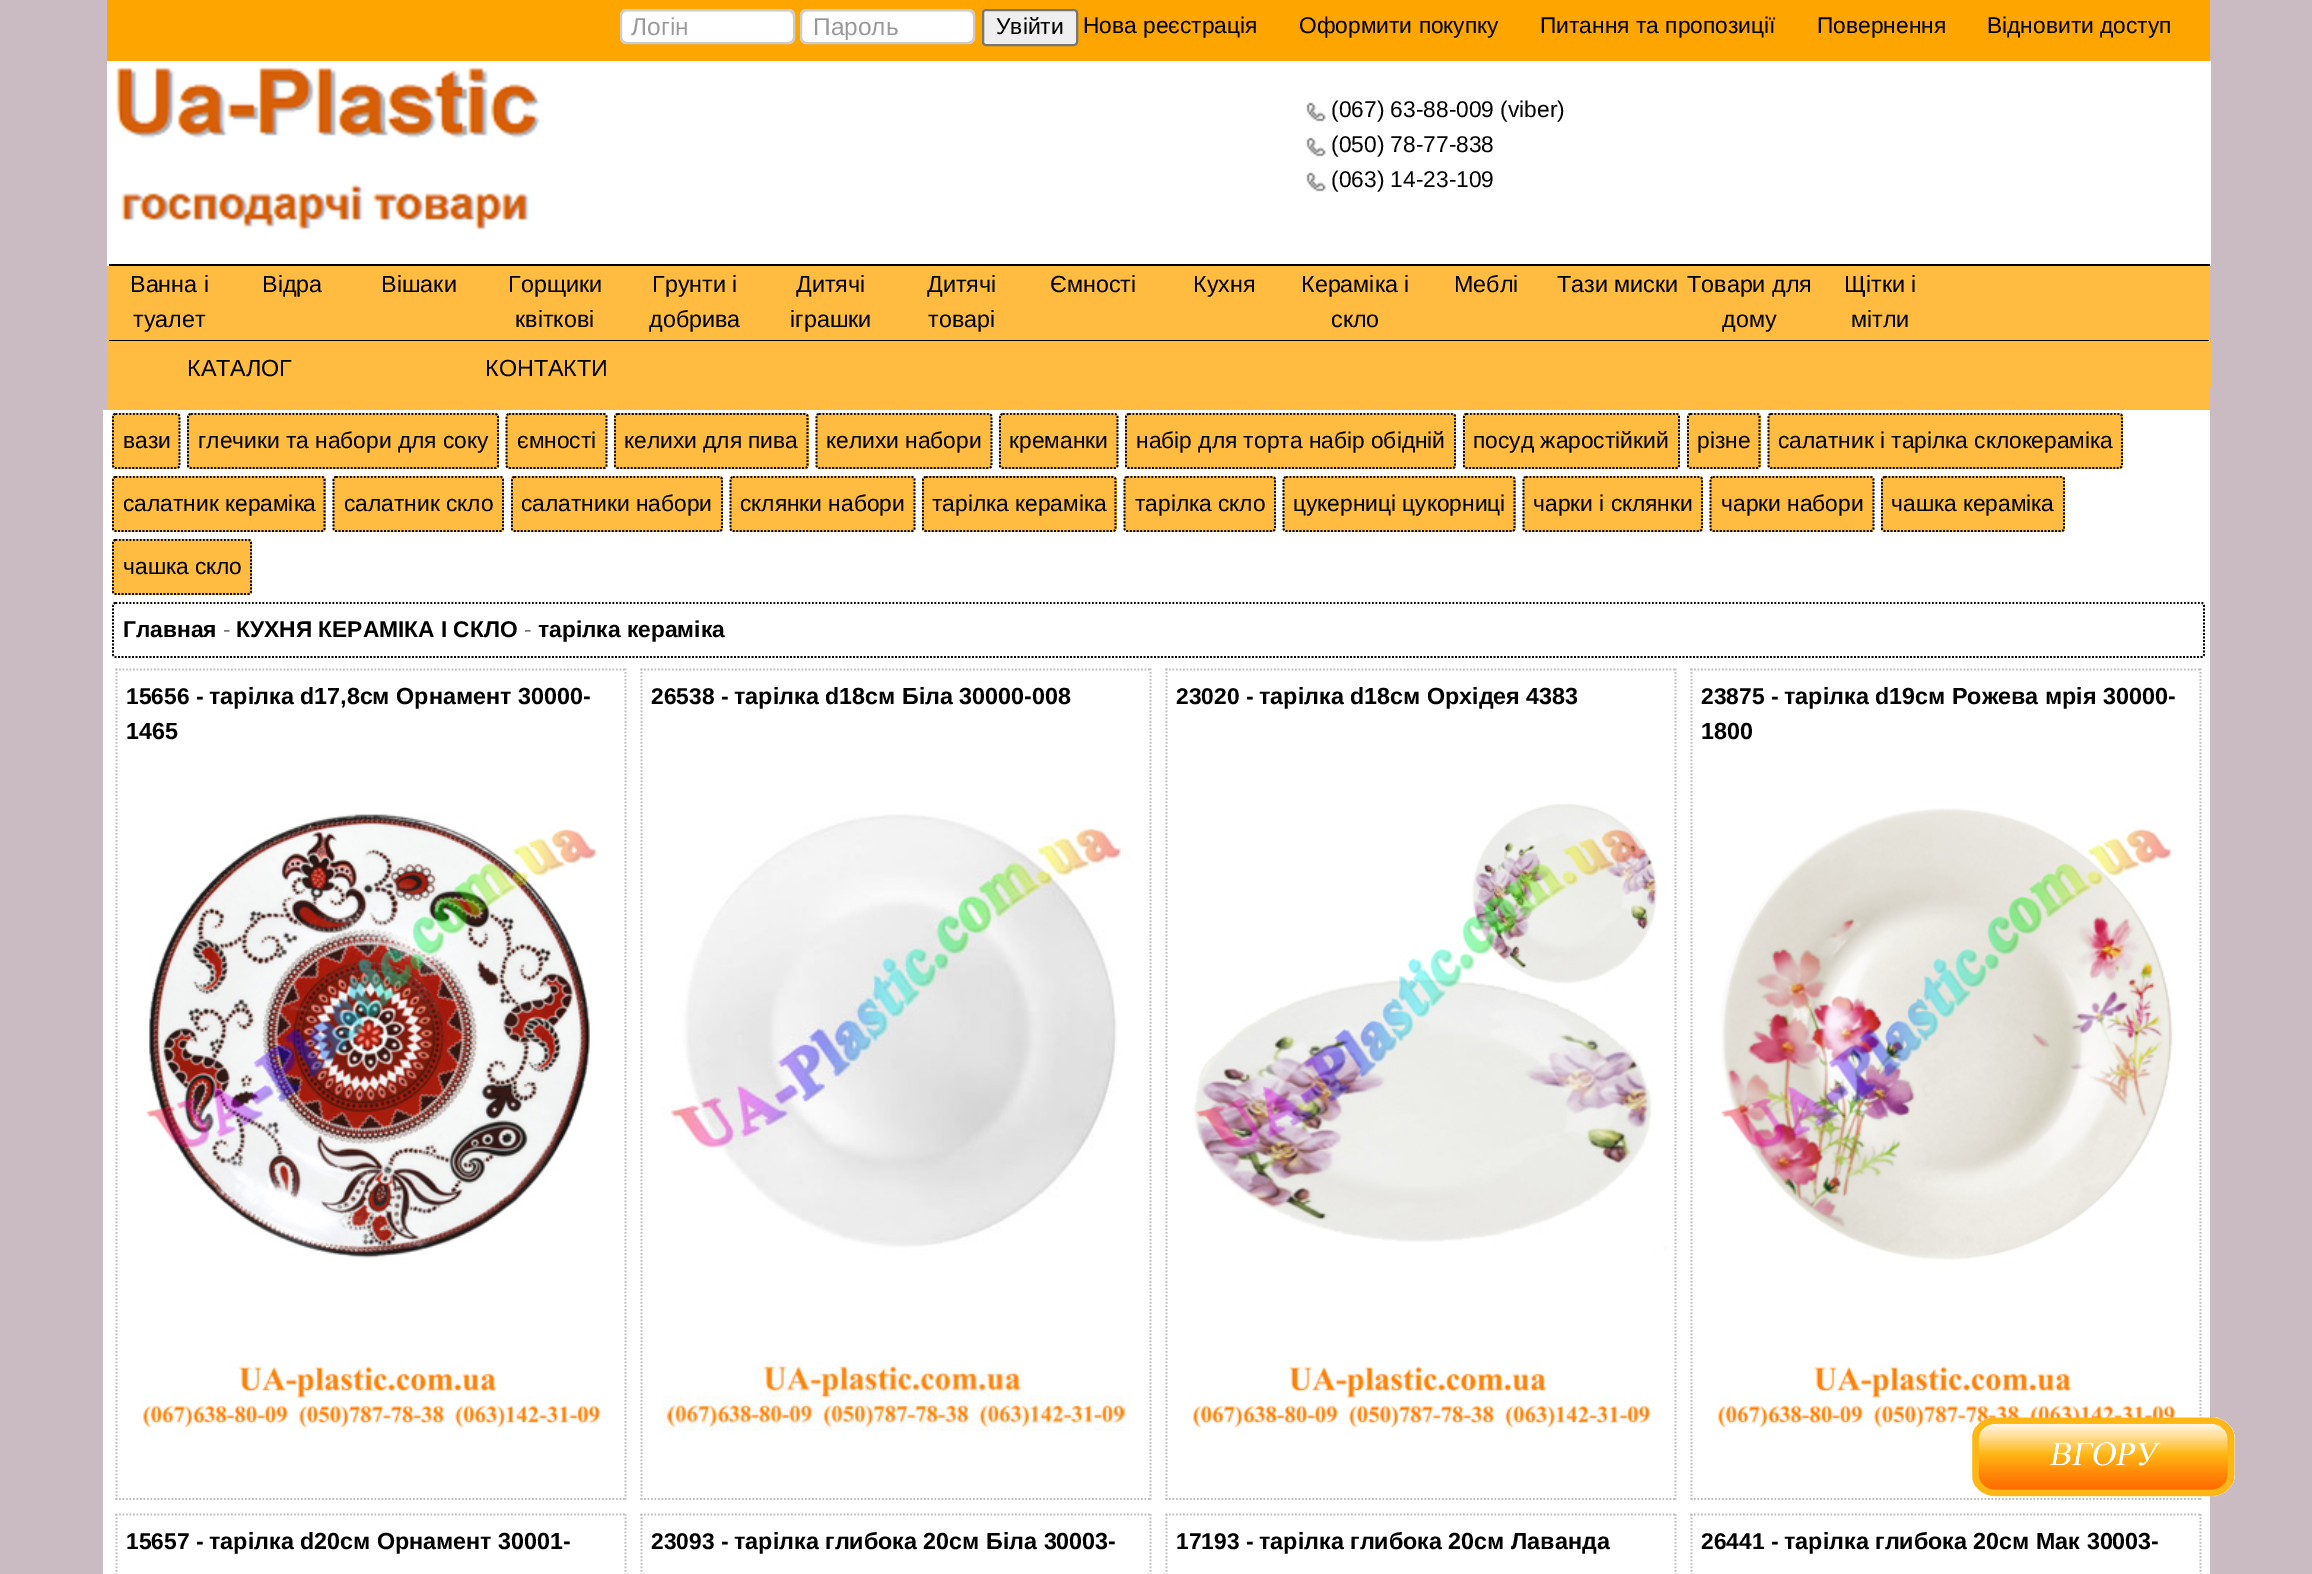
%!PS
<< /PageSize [2312 1574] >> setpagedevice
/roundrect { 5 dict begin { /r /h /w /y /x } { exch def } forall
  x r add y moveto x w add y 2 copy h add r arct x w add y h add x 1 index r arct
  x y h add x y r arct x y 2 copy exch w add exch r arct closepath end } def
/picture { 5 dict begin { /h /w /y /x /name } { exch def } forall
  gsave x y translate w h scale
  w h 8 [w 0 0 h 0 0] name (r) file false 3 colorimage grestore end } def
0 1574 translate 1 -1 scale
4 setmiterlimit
0.792 0.733 0.761 setrgbcolor
0 0 2312 1574 rectfill
1 0.647 0 setrgbcolor
107 0 2103 61 rectfill
1 setgray
620 9 175 35 7 roundrect fill
0.925 setgray
newpath 626 12 moveto 788 12 lineto 790 12 793 15 793 18 curveto 793 16 lineto 793 13 791 11 788 11 curveto 626 11 lineto 623 11 621 13 621 16 curveto 621 18 lineto 621 15 624 12 626 12 curveto closepath fill
0.8 setgray
2 setlinewidth
621 10 173 33 6 roundrect stroke
/LiberationSans-Regular [24.5 0 0 -24.5 0 0] selectfont
0.6 setgray
631 35 moveto (Логін) show
1 setgray
800 9 175 35 7 roundrect fill
0.925 setgray
newpath 807 12 moveto 968 12 lineto 971 12 973 15 973 18 curveto 973 16 lineto 973 13 971 11 968 11 curveto 807 11 lineto 804 11 802 13 802 16 curveto 802 18 lineto 802 15 804 12 807 12 curveto closepath fill
0.8 setgray
801 10 173 33 6 roundrect stroke
0.6 setgray
813 35 moveto (Пароль) show
0.937 setgray
983 10 94 35 3 roundrect gsave fill grestore
0.463 setgray
stroke
/LiberationSans-Regular [22.75 0 0 -22.75 0 0] selectfont
0 setgray
996 34 moveto (Увійти) show
1083 33 moveto (Нова реєстрація) show
1299 33 moveto (Оформити покупку) show
1540 33 moveto (Питання та пропозиції) show
1817 33 moveto (Повернення) show
1987 33 moveto (Відновити доступ) show
1 setgray
109 61 2100 203 rectfill
2209 61 2 205 rectfill
0 setgray
107 264 2103 2 rectfill
1 setgray
107 61 2 205 rectfill
(img1.rgb) 116 67 425 163 picture
(img2.rgb) 1306 102 20 20 picture
0 setgray
1331 117 moveto (\(067\) 63-88-009 \(viber\)) show
(img2.rgb) 1306 137 20 20 picture
1331 152 moveto (\(050\) 78-77-838) show
(img3.rgb) 1306 172 20 20 picture
1331 187 moveto (\(063\) 14-23-109) show
1 0.737 0.251 setrgbcolor
107 266 2103 74 rectfill
/LiberationSans-Regular [23.3 0 0 -23.3 0 0] selectfont
0 setgray
130 292 moveto (Ванна і) show
133 327 moveto (туалет) show
262 292 moveto (Відра) show
381 292 moveto (Вішаки) show
508 292 moveto (Горщики) show
515 327 moveto (квіткові) show
652 292 moveto (Грунти і) show
649 327 moveto (добрива) show
796 292 moveto (Дитячі) show
790 327 moveto (іграшки) show
927 292 moveto (Дитячі) show
928 327 moveto (товарі) show
1050 292 moveto (Ємності) show
1193 292 moveto (Кухня) show
1301 292 moveto (Кераміка і) show
1331 327 moveto (скло) show
1454 292 moveto (Меблі) show
1557 292 moveto (Тази миски) show
1687 292 moveto (Товари для) show
1722 327 moveto (дому) show
1844 292 moveto (Щітки і) show
1851 327 moveto (мітли) show
1 0.737 0.251 setrgbcolor
109 341 2100 46 rectfill
0 setgray
107 340 2103 1 rectfill
1 0.737 0.251 setrgbcolor
2209 340 2 47 rectfill
107 340 2 47 rectfill
0 setgray
187 376 moveto (КАТАЛОГ) show
485 376 moveto (КОНТАКТИ) show
1 0.737 0.251 setrgbcolor
107 387 2103 23 rectfill
1 setgray
103 410 2107 1164 rectfill
1 0.737 0.251 setrgbcolor
112 413 68 56 4 roundrect fill
0 setgray
1.8 setlinewidth
[1.75 1.75] 0 setdash
newpath 115.5 414 moveto 177 414 lineto 178 414 179.5 415 179.5 416.5 curveto 179.5 465.5 lineto 179.5 467 178 468 177 468 curveto 115.5 468 lineto 114 468 113 467 113 465.5 curveto 113 416.5 lineto 113 415 114 414 115.5 414 curveto closepath stroke
/LiberationSans-Regular [22.75 0 0 -22.75 0 0] selectfont
123 448 moveto (вази) show
1 0.737 0.251 setrgbcolor
187 413 312 56 4 roundrect fill
0 setgray
newpath 191 414 moveto 495 414 lineto 496.5 414 498 415 498 416.5 curveto 498 465.5 lineto 498 467 496.5 468 495 468 curveto 191 468 lineto 189.5 468 188 467 188 465.5 curveto 188 416.5 lineto 188 415 189.5 414 191 414 curveto closepath stroke
198 448 moveto (глечики та набори для соку) show
1 0.737 0.251 setrgbcolor
506 413 101 56 4 roundrect fill
0 setgray
newpath 509 414 moveto 604 414 lineto 605 414 606.5 415 606.5 416.5 curveto 606.5 465.5 lineto 606.5 467 605 468 604 468 curveto 509 468 lineto 508 468 506.5 467 506.5 465.5 curveto 506.5 416.5 lineto 506.5 415 508 414 509 414 curveto closepath stroke
517 448 moveto (ємності) show
1 0.737 0.251 setrgbcolor
614 413 195 56 4 roundrect fill
0 setgray
newpath 618 414 moveto 805 414 lineto 806.5 414 807.5 415 807.5 416.5 curveto 807.5 465.5 lineto 807.5 467 806.5 468 805 468 curveto 618 468 lineto 616.5 468 615 467 615 465.5 curveto 615 416.5 lineto 615 415 616.5 414 618 414 curveto closepath stroke
624 448 moveto (келихи для пива) show
1 0.737 0.251 setrgbcolor
816 413 176 56 4 roundrect fill
0 setgray
newpath 819 414 moveto 989 414 lineto 990 414 991.5 415 991.5 416.5 curveto 991.5 465.5 lineto 991.5 467 990 468 989 468 curveto 819 468 lineto 817.5 468 816.5 467 816.5 465.5 curveto 816.5 416.5 lineto 816.5 415 817.5 414 819 414 curveto closepath stroke
826 448 moveto (келихи набори) show
1 0.737 0.251 setrgbcolor
999 413 119 56 4 roundrect fill
0 setgray
newpath 1003 414 moveto 1115 414 lineto 1116 414 1117.5 415 1117.5 416.5 curveto 1117.5 465.5 lineto 1117.5 467 1116 468 1115 468 curveto 1003 468 lineto 1001.5 468 1000 467 1000 465.5 curveto 1000 416.5 lineto 1000 415 1001.5 414 1003 414 curveto closepath stroke
1009 448 moveto (креманки) show
1 0.737 0.251 setrgbcolor
1125 413 331 56 4 roundrect fill
0 setgray
newpath 1129 414 moveto 1452.5 414 lineto 1454 414 1455 415 1455 416.5 curveto 1455 465.5 lineto 1455 467 1454 468 1452.5 468 curveto 1129 468 lineto 1127.5 468 1126 467 1126 465.5 curveto 1126 416.5 lineto 1126 415 1127.5 414 1129 414 curveto closepath stroke
1136 448 moveto (набір для торта набір обідній) show
1 0.737 0.251 setrgbcolor
1463 413 217 56 4 roundrect fill
0 setgray
newpath 1466.5 414 moveto 1676.5 414 lineto 1678 414 1679 415 1679 416.5 curveto 1679 465.5 lineto 1679 467 1678 468 1676.5 468 curveto 1466.5 468 lineto 1465 468 1464 467 1464 465.5 curveto 1464 416.5 lineto 1464 415 1465 414 1466.5 414 curveto closepath stroke
1473 448 moveto (посуд жаростійкий) show
1 0.737 0.251 setrgbcolor
1687 413 74 56 4 roundrect fill
0 setgray
newpath 1690.5 414 moveto 1757 414 lineto 1758.5 414 1759.5 415 1759.5 416.5 curveto 1759.5 465.5 lineto 1759.5 467 1758.5 468 1757 468 curveto 1690.5 468 lineto 1689 468 1688 467 1688 465.5 curveto 1688 416.5 lineto 1688 415 1689 414 1690.5 414 curveto closepath stroke
1697 448 moveto (різне) show
1 0.737 0.251 setrgbcolor
1768 413 355 56 4 roundrect fill
0 setgray
newpath 1771 414 moveto 2119 414 lineto 2120.5 414 2122 415 2122 416.5 curveto 2122 465.5 lineto 2122 467 2120.5 468 2119 468 curveto 1771 468 lineto 1769.5 468 1768.5 467 1768.5 465.5 curveto 1768.5 416.5 lineto 1768.5 415 1769.5 414 1771 414 curveto closepath stroke
1778 448 moveto (салатник і тарілка склокераміка) show
1 0.737 0.251 setrgbcolor
112 476 214 56 4 roundrect fill
0 setgray
newpath 115.5 477 moveto 322 477 lineto 323.5 477 324.5 478 324.5 479.5 curveto 324.5 528.5 lineto 324.5 530 323.5 531 322 531 curveto 115.5 531 lineto 114 531 113 530 113 528.5 curveto 113 479.5 lineto 113 478 114 477 115.5 477 curveto closepath stroke
123 511 moveto (салатник кераміка) show
1 0.737 0.251 setrgbcolor
333 476 171 56 4 roundrect fill
0 setgray
newpath 336 477 moveto 500.5 477 lineto 502 477 503 478 503 479.5 curveto 503 528.5 lineto 503 530 502 531 500.5 531 curveto 336 531 lineto 334.5 531 333.5 530 333.5 528.5 curveto 333.5 479.5 lineto 333.5 478 334.5 477 336 477 curveto closepath stroke
344 511 moveto (салатник скло) show
1 0.737 0.251 setrgbcolor
511 476 212 56 4 roundrect fill
0 setgray
newpath 514.5 477 moveto 719 477 lineto 720.5 477 722 478 722 479.5 curveto 722 528.5 lineto 722 530 720.5 531 719 531 curveto 514.5 531 lineto 513 531 512 530 512 528.5 curveto 512 479.5 lineto 512 478 513 477 514.5 477 curveto closepath stroke
521 511 moveto (салатники набори) show
1 0.737 0.251 setrgbcolor
730 476 185 56 4 roundrect fill
0 setgray
newpath 733 477 moveto 912 477 lineto 913 477 914.5 478 914.5 479.5 curveto 914.5 528.5 lineto 914.5 530 913 531 912 531 curveto 733 531 lineto 732 531 730.5 530 730.5 528.5 curveto 730.5 479.5 lineto 730.5 478 732 477 733 477 curveto closepath stroke
740 511 moveto (склянки набори) show
1 0.737 0.251 setrgbcolor
922 476 195 56 4 roundrect fill
0 setgray
newpath 926 477 moveto 1113 477 lineto 1114.5 477 1115.5 478 1115.5 479.5 curveto 1115.5 528.5 lineto 1115.5 530 1114.5 531 1113 531 curveto 926 531 lineto 924.5 531 923 530 923 528.5 curveto 923 479.5 lineto 923 478 924.5 477 926 477 curveto closepath stroke
932 511 moveto (тарілка кераміка) show
1 0.737 0.251 setrgbcolor
1124 476 152 56 4 roundrect fill
0 setgray
newpath 1127 477 moveto 1272 477 lineto 1273.5 477 1275 478 1275 479.5 curveto 1275 528.5 lineto 1275 530 1273.5 531 1272 531 curveto 1127 531 lineto 1125.5 531 1124.5 530 1124.5 528.5 curveto 1124.5 479.5 lineto 1124.5 478 1125.5 477 1127 477 curveto closepath stroke
1135 511 moveto (тарілка скло) show
1 0.737 0.251 setrgbcolor
1283 476 233 56 4 roundrect fill
0 setgray
newpath 1286 477 moveto 1512 477 lineto 1513.5 477 1514.5 478 1514.5 479.5 curveto 1514.5 528.5 lineto 1514.5 530 1513.5 531 1512 531 curveto 1286 531 lineto 1285 531 1283.5 530 1283.5 528.5 curveto 1283.5 479.5 lineto 1283.5 478 1285 477 1286 477 curveto closepath stroke
1293 511 moveto (цукерниці цукорниці) show
1 0.737 0.251 setrgbcolor
1523 476 180 56 4 roundrect fill
0 setgray
newpath 1526 477 moveto 1699 477 lineto 1700.5 477 1702 478 1702 479.5 curveto 1702 528.5 lineto 1702 530 1700.5 531 1699 531 curveto 1526 531 lineto 1524.5 531 1523.5 530 1523.5 528.5 curveto 1523.5 479.5 lineto 1523.5 478 1524.5 477 1526 477 curveto closepath stroke
1533 511 moveto (чарки і склянки) show
1 0.737 0.251 setrgbcolor
1710 476 164 56 4 roundrect fill
0 setgray
newpath 1713 477 moveto 1871 477 lineto 1872 477 1873.5 478 1873.5 479.5 curveto 1873.5 528.5 lineto 1873.5 530 1872 531 1871 531 curveto 1713 531 lineto 1712 531 1710.5 530 1710.5 528.5 curveto 1710.5 479.5 lineto 1710.5 478 1712 477 1713 477 curveto closepath stroke
1721 511 moveto (чарки набори) show
1 0.737 0.251 setrgbcolor
1881 476 184 56 4 roundrect fill
0 setgray
newpath 1885 477 moveto 2061.5 477 lineto 2063 477 2064 478 2064 479.5 curveto 2064 528.5 lineto 2064 530 2063 531 2061.5 531 curveto 1885 531 lineto 1883.5 531 1882 530 1882 528.5 curveto 1882 479.5 lineto 1882 478 1883.5 477 1885 477 curveto closepath stroke
1891 511 moveto (чашка кераміка) show
1 0.737 0.251 setrgbcolor
112 539 140 56 4 roundrect fill
0 setgray
newpath 115.5 540 moveto 248.5 540 lineto 250 540 251 541 251 542.5 curveto 251 591.5 lineto 251 593 250 594 248.5 594 curveto 115.5 594 lineto 114 594 113 593 113 591.5 curveto 113 542.5 lineto 113 541 114 540 115.5 540 curveto closepath stroke
123 574 moveto (чашка скло) show
newpath 115.5 603 moveto 2201.5 603 lineto 2203 603 2204 604 2204 605.5 curveto 2204 654.5 lineto 2204 656 2203 657 2201.5 657 curveto 115.5 657 lineto 114 657 113 656 113 654.5 curveto 113 605.5 lineto 113 604 114 603 115.5 603 curveto closepath stroke
/LiberationSans-Bold [22.75 0 0 -22.75 0 0] selectfont
123 637 moveto (Главная) show
/LiberationSans-Regular [22.75 0 0 -22.75 0 0] selectfont
0.467 setgray
223 637 moveto (-) show
/LiberationSans-Bold [22.75 0 0 -22.75 0 0] selectfont
0 setgray
236 637 moveto (КУХНЯ КЕРАМІКА І СКЛО) show
/LiberationSans-Regular [22.75 0 0 -22.75 0 0] selectfont
0.467 setgray
524 637 moveto (-) show
/LiberationSans-Bold [22.75 0 0 -22.75 0 0] selectfont
0 setgray
538 637 moveto (тарілка кераміка) show
0.753 setgray
newpath 115.5 669.5 moveto 626.5 669.5 lineto stroke
newpath 625.5 668.5 moveto 625.5 1500 lineto stroke
newpath 115.5 1499 moveto 626.5 1499 lineto stroke
newpath 116.5 668.5 moveto 116.5 1500 lineto stroke
0 setgray
126 704 moveto (15656 -) show
/LiberationSans-Bold [23.3 0 0 -23.3 0 0] selectfont
209 704 moveto (тарілка d17,8см Орнамент 30000-) show
126 739 moveto (1465) show
(img4.rgb) 143 814 458 615 picture
0.753 setgray
newpath 640.5 669.5 moveto 1151.5 669.5 lineto stroke
newpath 1150.5 668.5 moveto 1150.5 1500 lineto stroke
newpath 640.5 1499 moveto 1151.5 1499 lineto stroke
newpath 641.5 668.5 moveto 641.5 1500 lineto stroke
/LiberationSans-Bold [22.75 0 0 -22.75 0 0] selectfont
0 setgray
651 704 moveto (26538 -) show
/LiberationSans-Bold [23.3 0 0 -23.3 0 0] selectfont
734 704 moveto (тарілка d18см Біла 30000-008) show
(img5.rgb) 662 814 468 617 picture
0.753 setgray
newpath 1165.5 669.5 moveto 1676.5 669.5 lineto stroke
newpath 1675.5 668.5 moveto 1675.5 1500 lineto stroke
newpath 1165.5 1499 moveto 1676.5 1499 lineto stroke
newpath 1166.5 668.5 moveto 1166.5 1500 lineto stroke
/LiberationSans-Bold [22.75 0 0 -22.75 0 0] selectfont
0 setgray
1176 704 moveto (23020 -) show
/LiberationSans-Bold [23.3 0 0 -23.3 0 0] selectfont
1259 704 moveto (тарілка d18см Орхідея 4383) show
(img6.rgb) 1193 803 473 626 picture
0.753 setgray
newpath 1690.5 669.5 moveto 2201.5 669.5 lineto stroke
newpath 2200.5 668.5 moveto 2200.5 1500 lineto stroke
newpath 1690.5 1499 moveto 2201.5 1499 lineto stroke
newpath 1691.5 668.5 moveto 1691.5 1500 lineto stroke
/LiberationSans-Bold [22.75 0 0 -22.75 0 0] selectfont
0 setgray
1701 704 moveto (23875 -) show
/LiberationSans-Bold [23.3 0 0 -23.3 0 0] selectfont
1784 704 moveto (тарілка d19см Рожева мрія 30000-) show
1701 739 moveto (1800) show
(img7.rgb) 1718 808 458 621 picture
0.753 setgray
newpath 115.5 1514.5 moveto 626.5 1514.5 lineto stroke
newpath 625.5 1514 moveto 625.5 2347 lineto stroke
newpath 116.5 1514 moveto 116.5 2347 lineto stroke
/LiberationSans-Bold [22.75 0 0 -22.75 0 0] selectfont
0 setgray
126 1549 moveto (15657 -) show
/LiberationSans-Bold [23.3 0 0 -23.3 0 0] selectfont
209 1549 moveto (тарілка d20см Орнамент 30001-) show
0.753 setgray
newpath 640.5 1514.5 moveto 1151.5 1514.5 lineto stroke
newpath 1150.5 1514 moveto 1150.5 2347 lineto stroke
newpath 641.5 1514 moveto 641.5 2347 lineto stroke
/LiberationSans-Bold [22.75 0 0 -22.75 0 0] selectfont
0 setgray
651 1549 moveto (23093 -) show
/LiberationSans-Bold [23.3 0 0 -23.3 0 0] selectfont
734 1549 moveto (тарілка глибока 20см Біла 30003-) show
0.753 setgray
newpath 1165.5 1514.5 moveto 1676.5 1514.5 lineto stroke
newpath 1675.5 1514 moveto 1675.5 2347 lineto stroke
newpath 1166.5 1514 moveto 1166.5 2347 lineto stroke
/LiberationSans-Bold [22.75 0 0 -22.75 0 0] selectfont
0 setgray
1176 1549 moveto (17193 -) show
/LiberationSans-Bold [23.3 0 0 -23.3 0 0] selectfont
1259 1549 moveto (тарілка глибока 20см Лаванда) show
0.753 setgray
newpath 1690.5 1514.5 moveto 2201.5 1514.5 lineto stroke
newpath 2200.5 1514 moveto 2200.5 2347 lineto stroke
newpath 1691.5 1514 moveto 1691.5 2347 lineto stroke
/LiberationSans-Bold [22.75 0 0 -22.75 0 0] selectfont
0 setgray
1701 1549 moveto (26441 -) show
/LiberationSans-Bold [23.3 0 0 -23.3 0 0] selectfont
1784 1549 moveto (тарілка глибока 20см Мак 30003-) show
(img8.rgb) 1972 1417 263 80 picture
showpage
